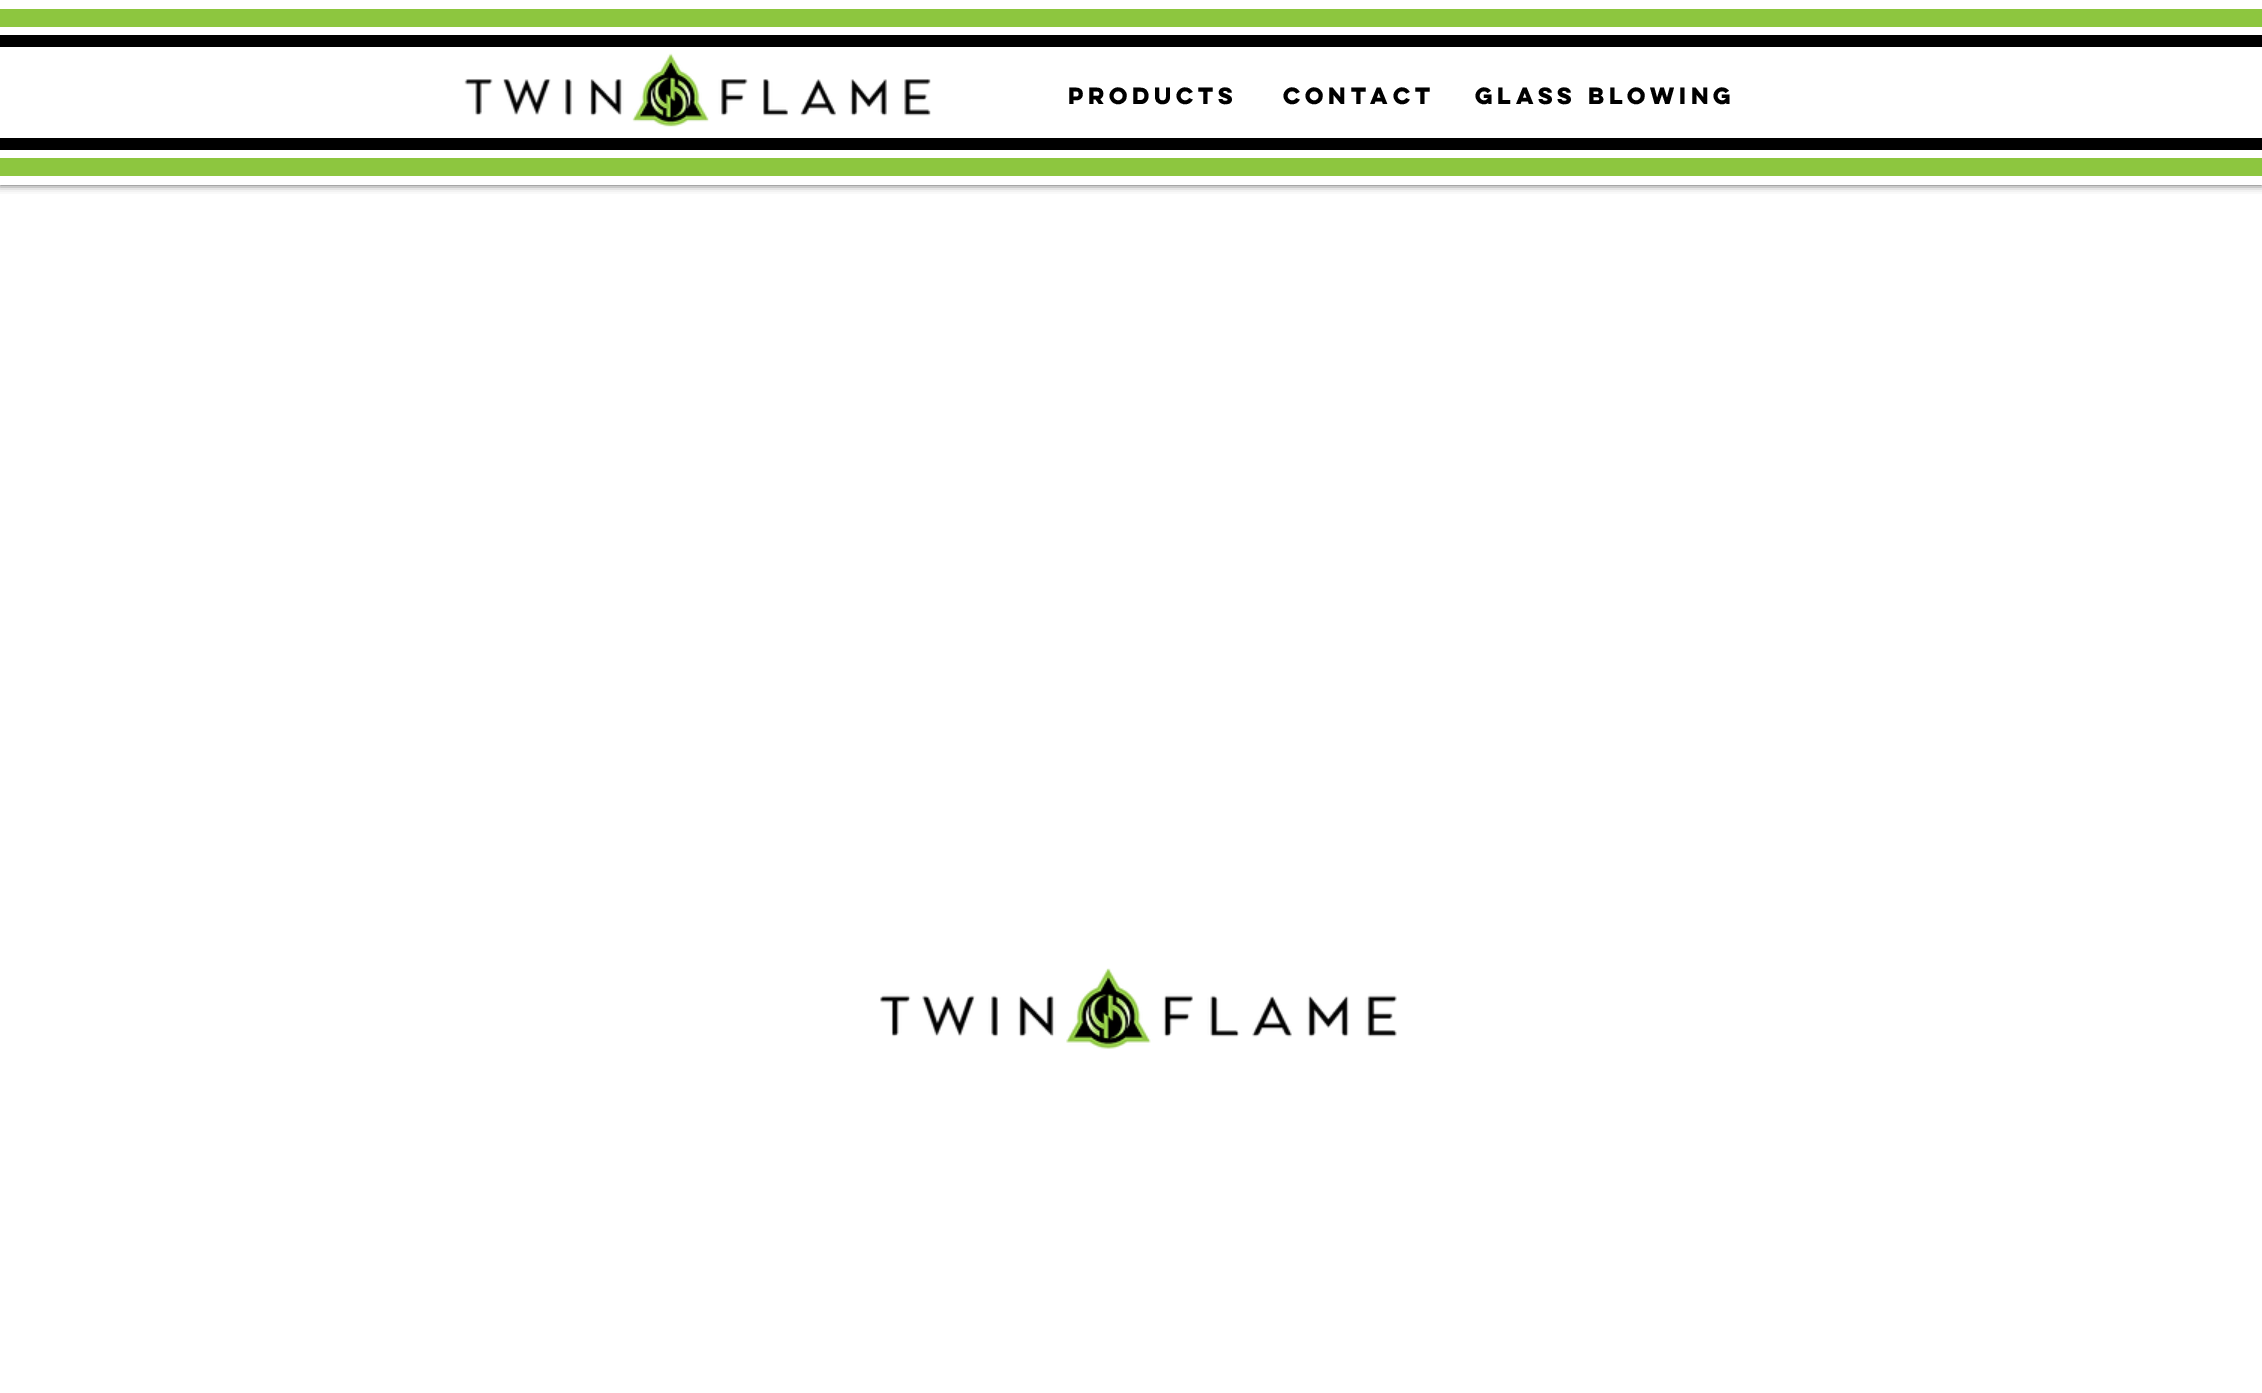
%!PS
<< /PageSize [2262 1393] /PageUsesTransparency true >> setpagedevice
/rgb { 3 { 255 div 3 1 roll } repeat setrgbcolor } def
/font { [ exch dup neg 0 0 3 -1 roll 0 0 ] selectfont } def
/text { moveto show } def
/alpha { dup .setfillconstantalpha .setstrokeconstantalpha } def
/roundrect { 5 dict begin { /r /h /w /y /x } { exch def } forall
  x r add y moveto x w add y 2 copy h add r arct x w add y h add x 1 index r arct
  x y h add x y r arct x y 2 copy exch w add exch r arct closepath end } def
/shadow { 12 dict begin { /a /b /q /h /w /y /x } { exch def } forall gsave /was 0 def
  9 -2 -9 { dup b mul 4 div /e exch def 1 sub .425 mul 2.718 exch exp 1 add a .99 .min exch div /now exch def
    1 1 now sub 1 was sub div sub alpha /was now def
    w h .min e 2 mul add 0 gt { x e sub y e sub w e 2 mul add h e 2 mul add
      q e add b .6 mul add w h .min 2 div e add .min 0 .max roundrect fill } if } for grestore end } def
/picture { 5 dict begin { /h /w /y /x /name } { exch def } forall
  gsave x y translate w h scale
  w h 8 [w 0 0 h 0 0] name (r) file false 3 colorimage grestore end } def
0 .pushpdf14devicefilter
0 1393 translate 1 -1 scale
4 setmiterlimit
255 255 255 rgb
0 0 2262 1393 rectfill
0 0 0 rgb
0 0 2262 185 0 4 0.7 shadow
255 255 255 rgb
0 0 2262 185 rectfill
141 198 63 rgb
0 9 2262 18 rectfill
0 158 2262 18 rectfill
0 0 0 rgb
0 35 2262 12 rectfill
0 138 2262 12 rectfill
(img_01.rgb) 464 53 467 74 picture
(img_02.rgb) 880 968 517 81 picture
/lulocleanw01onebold-Bold 21 font
(Products) 1068 104 text
(Contact) 1283 104 text
(Glass Blowing) 1475 104 text
.poppdf14devicefilter showpage
